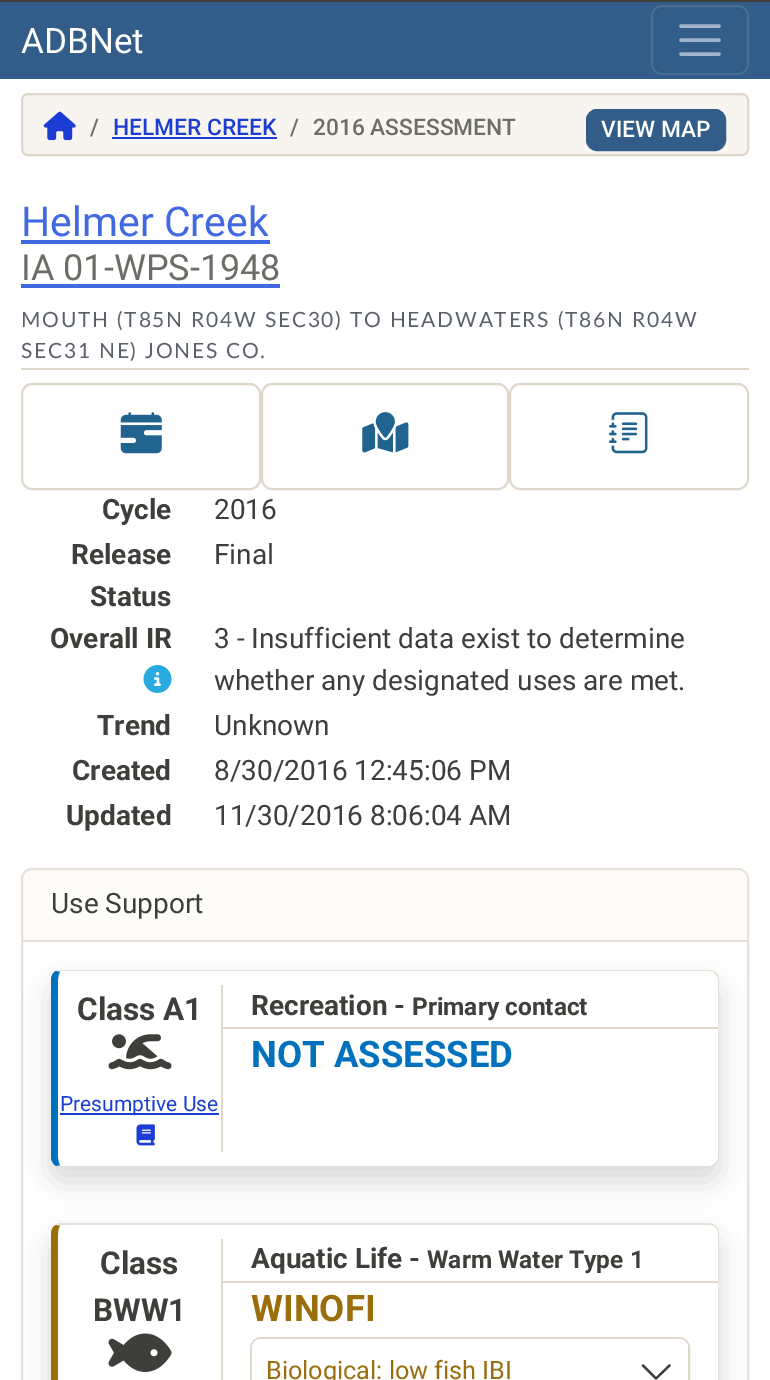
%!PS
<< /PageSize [770 1380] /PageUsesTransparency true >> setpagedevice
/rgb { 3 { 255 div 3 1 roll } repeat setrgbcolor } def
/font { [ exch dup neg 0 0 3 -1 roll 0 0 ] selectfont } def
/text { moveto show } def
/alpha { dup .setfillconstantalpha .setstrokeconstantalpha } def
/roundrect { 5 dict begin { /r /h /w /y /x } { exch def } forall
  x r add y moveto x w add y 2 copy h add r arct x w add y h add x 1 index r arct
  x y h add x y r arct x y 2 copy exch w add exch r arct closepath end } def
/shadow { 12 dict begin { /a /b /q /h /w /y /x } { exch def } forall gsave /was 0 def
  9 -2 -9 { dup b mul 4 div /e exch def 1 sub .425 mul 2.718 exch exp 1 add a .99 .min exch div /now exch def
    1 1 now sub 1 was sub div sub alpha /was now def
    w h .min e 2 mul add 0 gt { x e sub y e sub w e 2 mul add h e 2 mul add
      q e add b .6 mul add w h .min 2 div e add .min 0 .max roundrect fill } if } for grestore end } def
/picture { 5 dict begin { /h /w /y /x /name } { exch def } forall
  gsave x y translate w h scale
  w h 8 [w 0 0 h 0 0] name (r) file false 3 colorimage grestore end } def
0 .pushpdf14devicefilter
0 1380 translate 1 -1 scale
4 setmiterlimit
255 255 255 rgb
0 0 770 1380 rectfill
50 93 136 rgb
0 2 770 77 rectfill
62 63 58 rgb
0 0 770 2 rectfill
71 109 148 rgb
2 setlinewidth
652 6 96 68 10 roundrect stroke
163 182 201 rgb
3.5 setlinewidth
1 setlinecap
681 26 moveto 38 0 rlineto 681 40 moveto 38 0 rlineto 681 54 moveto 38 0 rlineto stroke
248 245 240 rgb
22 94 726 61 6 roundrect gsave fill grestore
223 215 202 rgb
2 setlinewidth
0 setlinecap
stroke
(img_01.rgb) 43 111 33 30 picture
27 61 211 rgb
112 137 165 2 rectfill
50 93 136 rgb
587 110 138 40 10 roundrect gsave fill grestore
stroke
223 215 202 rgb
21 368 728 2 rectfill
65 105 225 rgb
21 240 249 4 rectfill
21 284 259 4 rectfill
223 215 202 rgb
22 384 238 105 10 roundrect stroke
(img_02.rgb) 120 412 42 42 picture
262 384 246 105 10 roundrect stroke
(img_03.rgb) 362 412 47 41 picture
510 384 238 105 10 roundrect stroke
(img_04.rgb) 609 412 39 42 picture
(img_05.rgb) 143 665 29 28 picture
231 225 215 rgb
22 869 726 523 10 roundrect stroke
0.25 alpha
248 245 240 rgb
32 870 moveto 706 0 rlineto 5 0 9 4 9 9 rcurveto 0 63 rlineto -724 0 rlineto 0 -63 rlineto 0 -5 4 -9 9 -9 rcurveto closepath fill
1 alpha
231 224 214 rgb
23 940 724 2 rectfill
gsave
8 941 moveto 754 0 rlineto 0 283 rlineto -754 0 rlineto closepath 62 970 moveto 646 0 rlineto 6 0 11 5 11 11 rcurveto 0 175 rlineto 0 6 -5 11 -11 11 rcurveto -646 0 rlineto -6 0 -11 -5 -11 -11 rcurveto 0 -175 rlineto 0 -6 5 -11 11 -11 rcurveto closepath eoclip newpath
0 0 0 rgb
51 984 668 197 11 14 0.15 shadow
grestore
231 225 215 rgb
61 970 moveto -5 1 rlineto 4 1 rlineto 1 -1 rlineto 648 0 rlineto 2 0 5 1 6 3 rcurveto 1 -1 rlineto -2 -2 -4 -3 -7 -3 rcurveto closepath fill
0.75 alpha
223 215 202 rgb
716 973 moveto 2 1 3 4 3 7 rcurveto 0 177 rlineto 0 3 -1 5 -3 7 rcurveto -1 -1 rlineto 2 -1 3 -3 3 -6 rcurveto 0 -177 rlineto 0 -3 -1 -5 -3 -6 rcurveto closepath fill
716 1164 moveto -2 2 -4 3 -7 3 rcurveto -648 0 rlineto -2 0 -4 0 -5 -1 rcurveto 4 -1 rlineto 1 1 rlineto 648 0 rlineto 3 0 5 -1 6 -3 rcurveto closepath fill
1 alpha
0 113 188 rgb
56 971 moveto -3 1 -5 5 -5 9 rcurveto 0 177 rlineto 0 4 2 7 5 9 rcurveto 4 -1 rlineto -1 -1 -2 -4 -2 -8 rcurveto 0 -177 rlineto 0 -4 1 -7 2 -8 rcurveto closepath fill
223 215 202 rgb
221 985 2 167 rectfill
(img_06.rgb) 108 1034 64 36 picture
27 61 211 rgb
60 1113 159 2 rectfill
(img_07.rgb) 136 1124 19 22 picture
223 215 202 rgb
222 1027 496 2 rectfill
0 0 0 rgb
51 1237 668 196 11 14 0.15 shadow
255 255 255 rgb
51 1223 668 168 11 roundrect fill
231 225 215 rgb
61 1225 moveto -1 1 rlineto -4 -1 rlineto 3 -2 rlineto 652 0 rlineto 2 1 4 2 5 3 rcurveto -1 1 rlineto -1 -1 -4 -2 -6 -2 rcurveto closepath fill
0.75 alpha
223 215 202 rgb
716 1226 moveto 2 2 3 5 3 8 rcurveto 0 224 rlineto 0 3 -1 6 -3 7 rcurveto -1 -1 rlineto 2 -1 3 -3 3 -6 rcurveto 0 -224 rlineto 0 -3 -1 -5 -3 -7 rcurveto closepath fill
1 alpha
155 110 13 rgb
56 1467 moveto -3 -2 -5 -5 -5 -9 rcurveto 0 -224 rlineto 0 -4 2 -8 5 -9 rcurveto 4 1 rlineto -1 1 -2 4 -2 8 rcurveto 0 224 rlineto 0 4 1 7 2 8 rcurveto closepath fill
223 215 202 rgb
221 1239 2 141 rectfill
(img_08.rgb) 108 1333 64 39 picture
222 1281 496 2 rectfill
251 1338 438 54 10 roundrect stroke
255 255 255 rgb
252 1339 436 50 9 roundrect fill
62 63 58 rgb
2.2 setlinewidth
1 setlinecap
1 setlinejoin
643 1365.5 moveto 13 13 rlineto 13.5 -13 rlineto stroke
/Roboto-Regular 35 font
255 255 255 rgb
(ADBNet) 21 53 text
/Roboto-Medium 22.75 font
109 109 104 rgb
(/) 90 135 text
27 61 211 rgb
(HELMER CREEK) 113 135 text
109 109 104 rgb
(/) 290 135 text
(2016 ASSESSMENT) 313 135 text
255 255 255 rgb
(VIEW MAP) 601 137 text
/Roboto-Regular 41 font
65 105 225 rgb
(Helmer Creek) 21 236 text
/Roboto-Regular 36 font
109 109 104 rgb
(IA 01-WPS-1948) 21 280 text
/Lato-Regular 21 font
91 97 107 rgb
21 327 moveto 1.75 0 (MOUTH \(T85N R04W SEC30\) TO HEADWATERS \(T86N R04W) ashow
21 358 moveto 1.75 0 (SEC31 NE\) JONES CO.) ashow
/Roboto-Bold 28 font
62 63 58 rgb
(Cycle) 102 519 text
/Roboto-Regular 28 font
(2016) 214 519 text
/Roboto-Bold 28 font
(Release) 71 564 text
(Status) 90 606 text
/Roboto-Regular 28 font
(Final) 214 564 text
/Roboto-Bold 28 font
(Overall IR) 50 648 text
/Roboto-Regular 28 font
(3 - Insufficient data exist to determine) 214 648 text
(whether any designated uses are met.) 214 690 text
/Roboto-Bold 28 font
(Trend) 97 735 text
/Roboto-Regular 28 font
(Unknown) 214 735 text
/Roboto-Bold 28 font
(Created) 72 780 text
/Roboto-Regular 28 font
(8/30/2016 12:45:06 PM) 214 780 text
/Roboto-Bold 28 font
(Updated) 66 825 text
/Roboto-Regular 28 font
(11/30/2016 8:06:04 AM) 214 825 text
(Use Support) 51 913 text
/Roboto-Bold 31.5 font
(Class A1) 77 1020 text
/Roboto-Regular 21 font
27 61 211 rgb
(Presumptive Use) 60 1111 text
/Roboto-Bold 28 font
62 63 58 rgb
(Recreation -) 251 1015 text
/Roboto-Bold 24.5 font
(Primary contact) 412 1015 text
/Roboto-Bold 36.5 font
0 113 188 rgb
(NOT ASSESSED) 251 1067 text
/Roboto-Bold 31.5 font
62 63 58 rgb
(Class) 100 1274 text
(BWW1) 93 1321 text
/Roboto-Bold 28 font
(Aquatic Life -) 251 1268 text
/Roboto-Bold 24.5 font
(Warm Water Type 1) 427 1268 text
/Roboto-Bold 36.5 font
155 110 13 rgb
(WINOFI) 251 1321 text
/Roboto-Regular 25.25 font
(Biological: low fish IBI) 266 1379 text
.poppdf14devicefilter showpage
